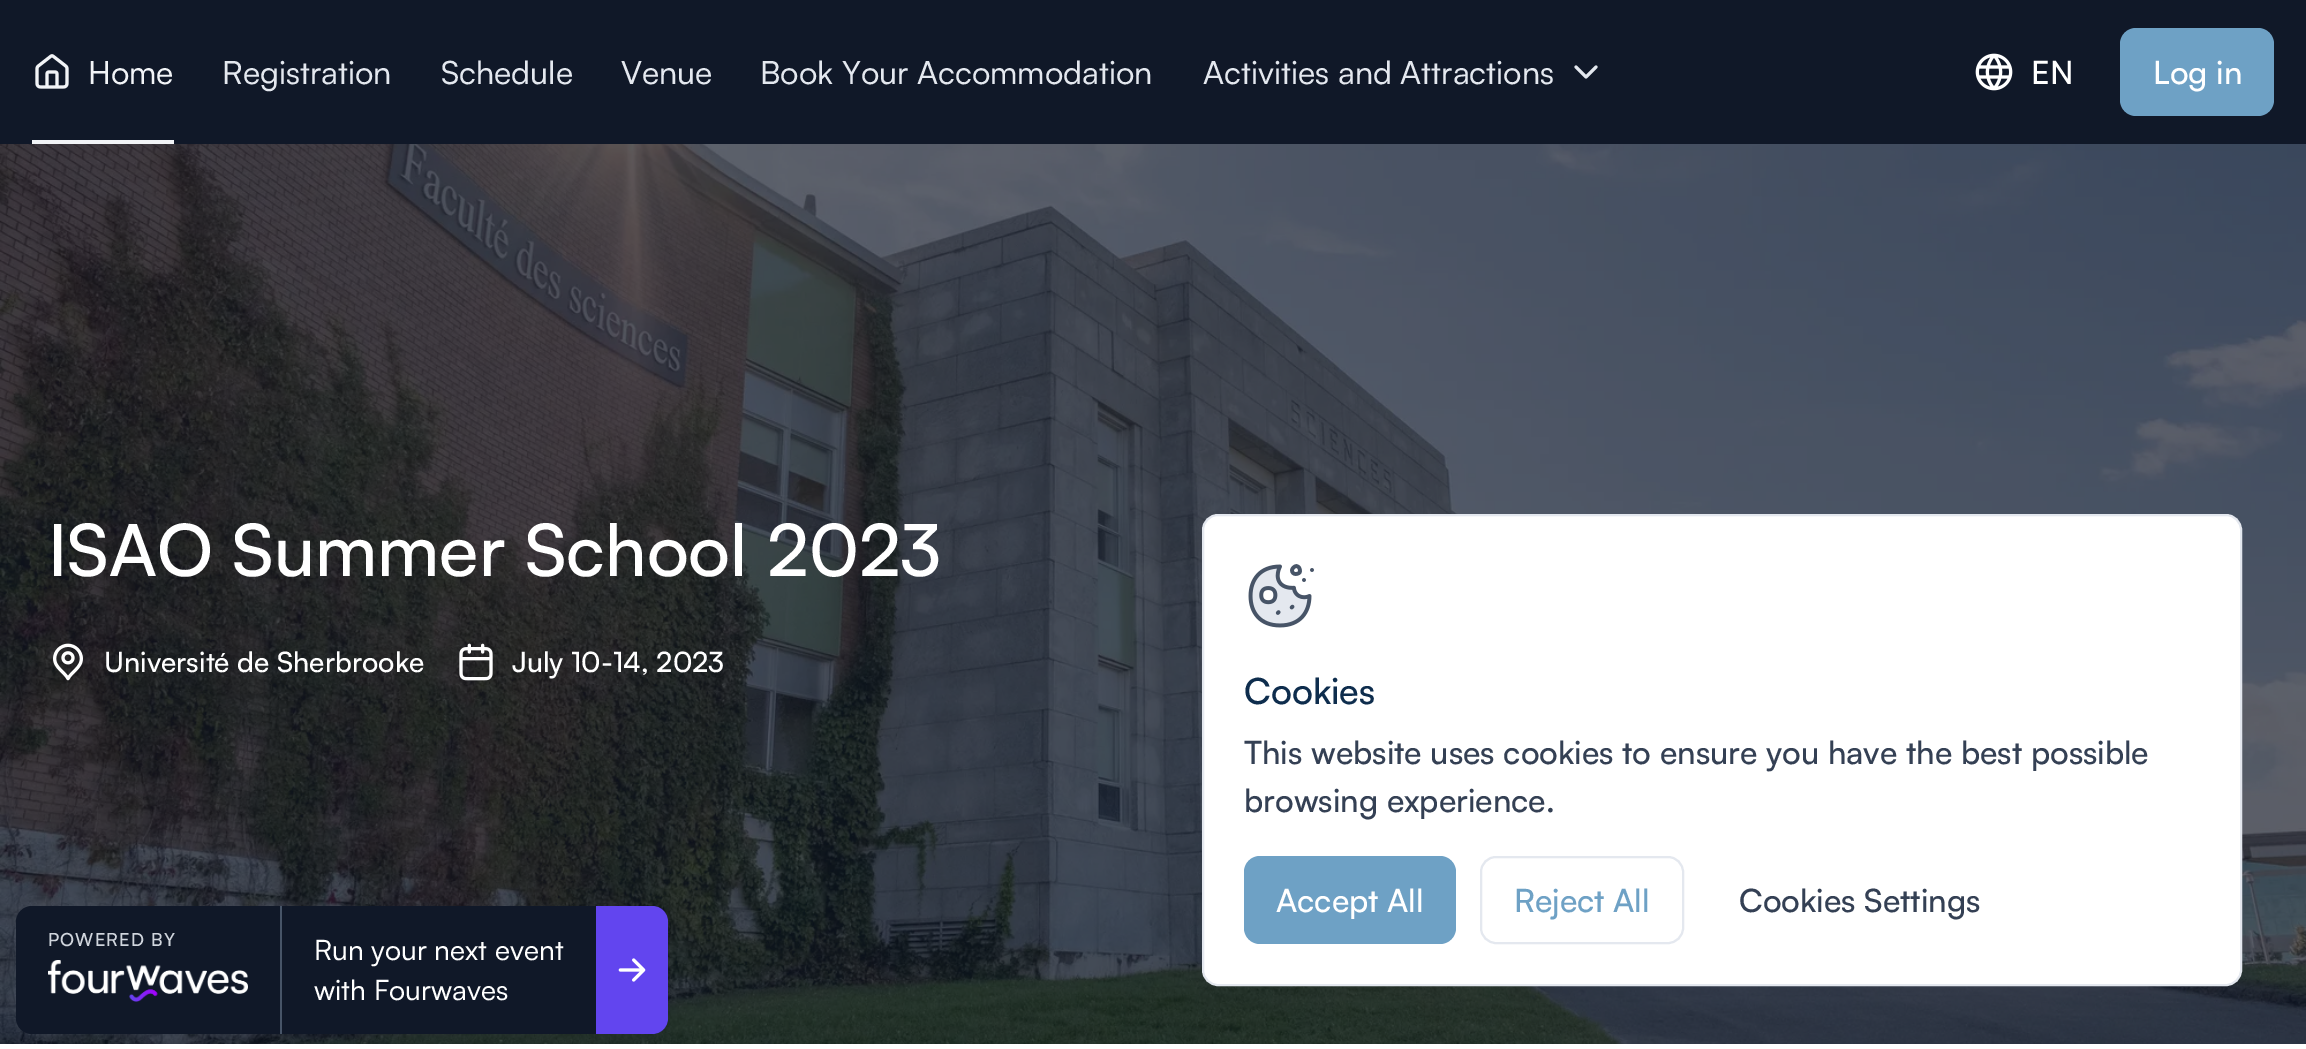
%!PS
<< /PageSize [2306 1049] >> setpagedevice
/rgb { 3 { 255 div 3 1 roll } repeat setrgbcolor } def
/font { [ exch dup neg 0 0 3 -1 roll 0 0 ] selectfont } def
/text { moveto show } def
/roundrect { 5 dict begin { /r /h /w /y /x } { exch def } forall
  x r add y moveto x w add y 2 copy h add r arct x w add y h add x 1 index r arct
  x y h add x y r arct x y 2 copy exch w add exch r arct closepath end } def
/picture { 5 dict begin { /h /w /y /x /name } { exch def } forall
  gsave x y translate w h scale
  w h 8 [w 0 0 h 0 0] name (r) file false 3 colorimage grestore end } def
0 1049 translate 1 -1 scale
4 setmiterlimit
255 255 255 rgb
0 0 2306 1049 rectfill
16 24 40 rgb
0 0 2306 144 rectfill
(img_01.rgb) 35 54 34 35 picture
242 244 247 rgb
32 140 142 4 rectfill
(img_02.rgb) 1574 65 24 14 picture
(img_03.rgb) 1975 53 38 38 picture
110 161 197 rgb
2120 28 154 88 16 roundrect fill
(img_04.rgb) 0 144 2306 900 picture
(img_05.rgb) 53 643 30 38 picture
(img_06.rgb) 459 643 34 38 picture
16 24 40 rgb
16 906 652 128 16 roundrect fill
71 84 103 rgb
280 906 2 128 rectfill
(img_07.rgb) 48 960 200 42 picture
98 69 239 rgb
596 906 moveto 56 0 rlineto 9 0 16 7 16 16 rcurveto 0 96 rlineto 0 9 -7 16 -16 16 rcurveto -56 0 rlineto closepath fill
(img_08.rgb) 618 958 28 24 picture
255 255 255 rgb
1203 515 1038 470 15 roundrect gsave fill grestore
228 232 239 rgb
2 setlinewidth
stroke
(img_09.rgb) 1248 564 66 64 picture
110 161 197 rgb
1244 856 212 88 16 roundrect fill
228 232 239 rgb
1481 857 202 86 15 roundrect stroke
/Satoshi-Regular 32 font
242 244 247 rgb
(Home) 88 84 text
228 232 239 rgb
(Registration) 222 84 text
(Schedule) 441 84 text
(Venue) 621 84 text
(Book Your Accommodation) 760 84 text
(Activities and Attractions) 1203 84 text
/Satoshi-Medium 32 font
255 255 255 rgb
(EN) 2031 84 text
(Log in) 2153 84 text
/Satoshi-Medium 72 font
(ISAO Summer School 2023) 48 576 text
/Satoshi-Medium 28 font
(Université de Sherbrooke) 104 672 text
(July 10-14, 2023) 512 672 text
/Satoshi-Medium 18 font
208 213 221 rgb
48 946 moveto 1.1 0 (POWERED BY) ashow
/Satoshi-Regular 28 font
255 255 255 rgb
(Run your next event) 314 960 text
(with Fourwaves) 314 1000 text
/Satoshi-Medium 36 font
14 45 77 rgb
(Cookies) 1244 704 text
/Satoshi-Medium 32 font
52 64 84 rgb
(This website uses cookies to ensure you have the best possible) 1244 764 text
(browsing experience.) 1244 812 text
255 255 255 rgb
(Accept All) 1276 912 text
110 161 197 rgb
(Reject All) 1514 912 text
52 64 84 rgb
(Cookies Settings) 1739 912 text
showpage
